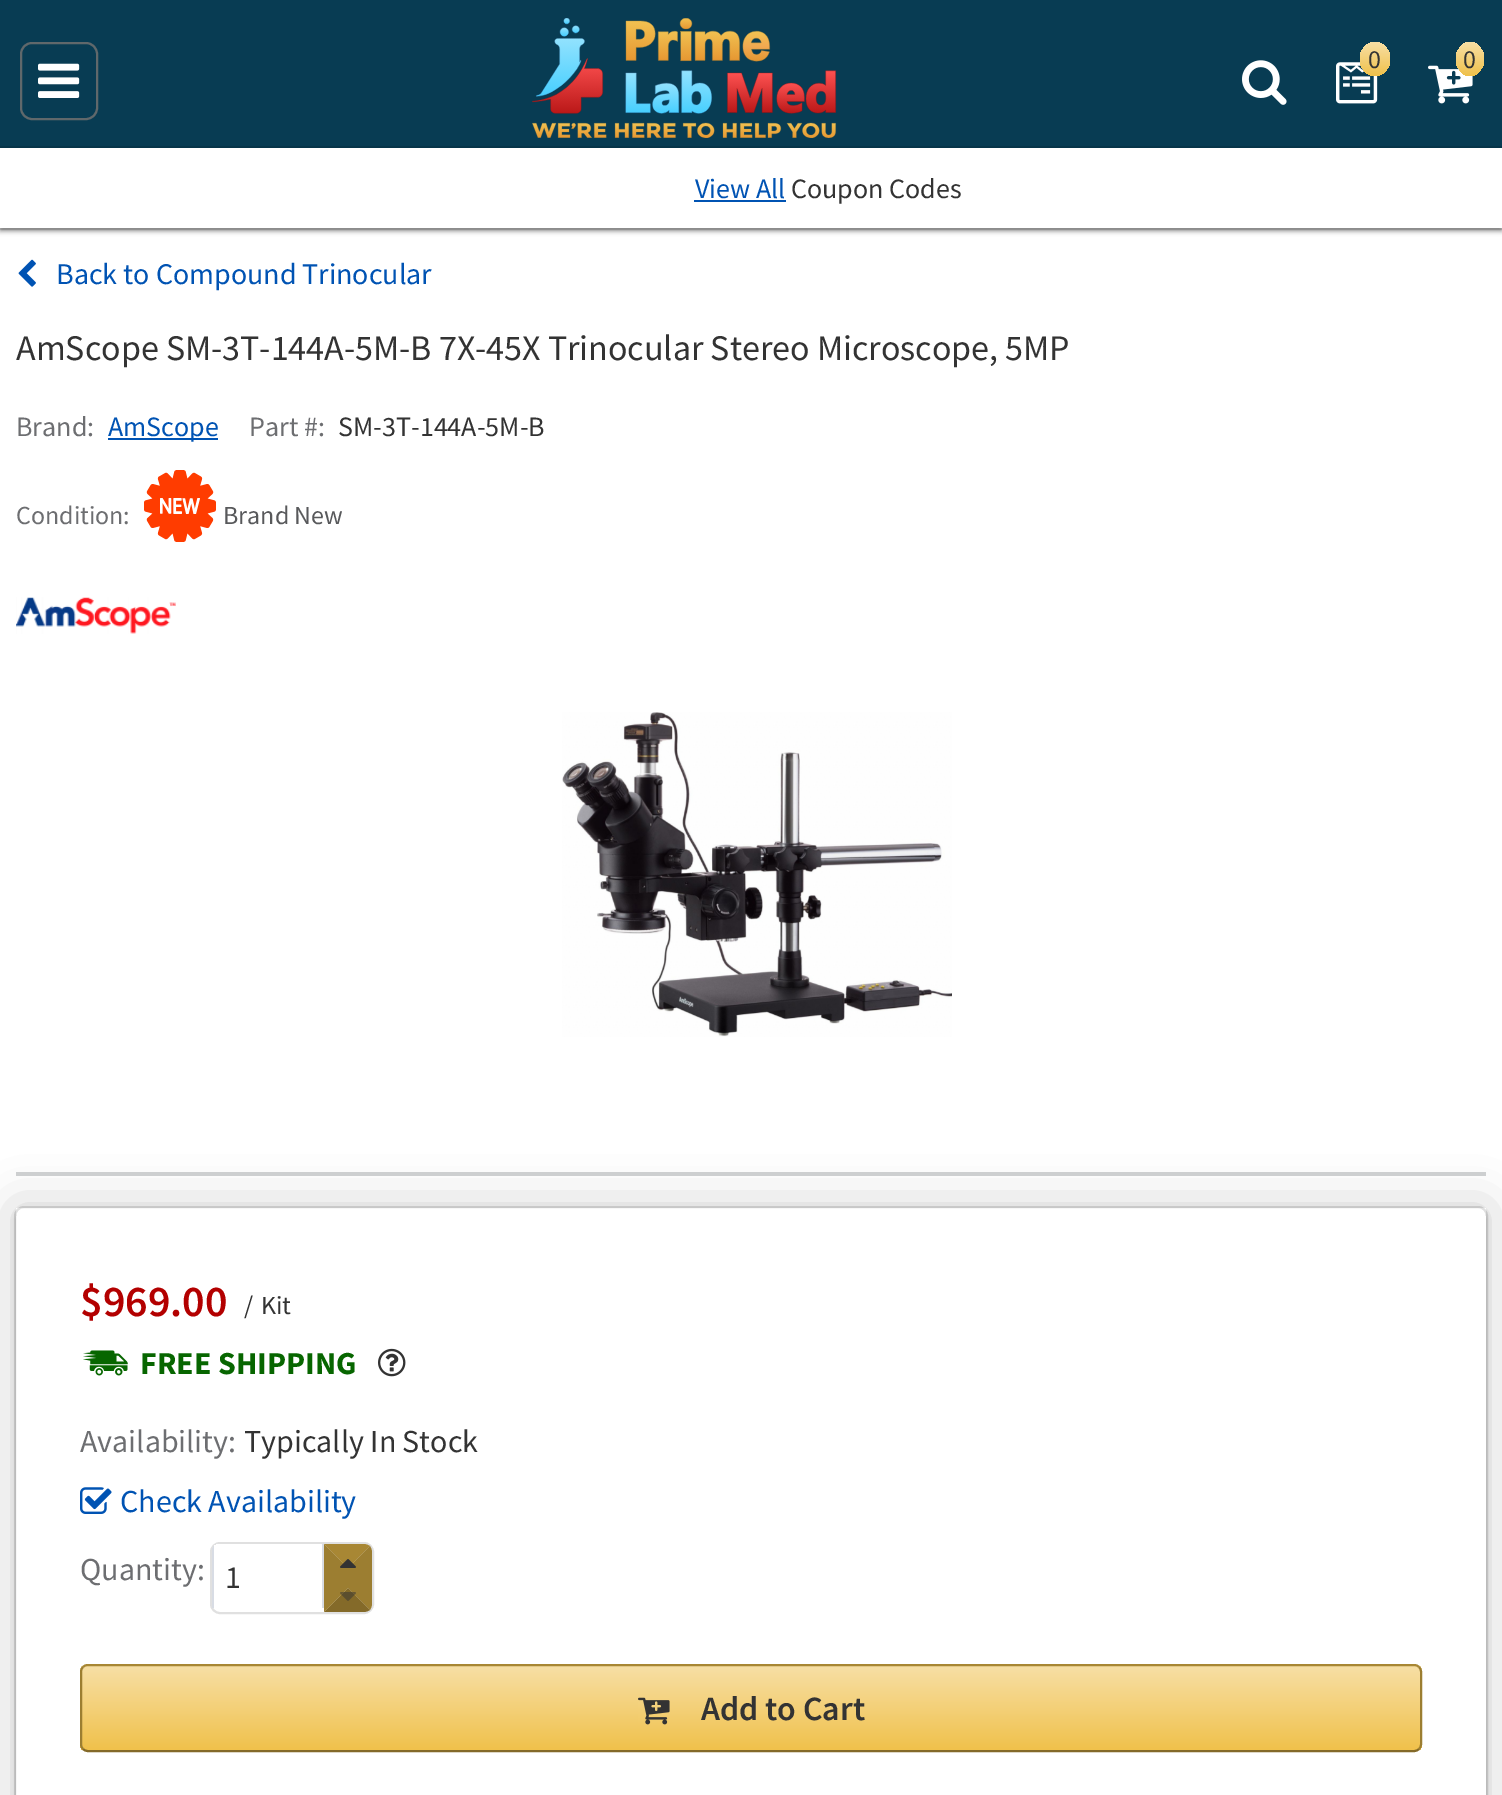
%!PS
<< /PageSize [1502 1795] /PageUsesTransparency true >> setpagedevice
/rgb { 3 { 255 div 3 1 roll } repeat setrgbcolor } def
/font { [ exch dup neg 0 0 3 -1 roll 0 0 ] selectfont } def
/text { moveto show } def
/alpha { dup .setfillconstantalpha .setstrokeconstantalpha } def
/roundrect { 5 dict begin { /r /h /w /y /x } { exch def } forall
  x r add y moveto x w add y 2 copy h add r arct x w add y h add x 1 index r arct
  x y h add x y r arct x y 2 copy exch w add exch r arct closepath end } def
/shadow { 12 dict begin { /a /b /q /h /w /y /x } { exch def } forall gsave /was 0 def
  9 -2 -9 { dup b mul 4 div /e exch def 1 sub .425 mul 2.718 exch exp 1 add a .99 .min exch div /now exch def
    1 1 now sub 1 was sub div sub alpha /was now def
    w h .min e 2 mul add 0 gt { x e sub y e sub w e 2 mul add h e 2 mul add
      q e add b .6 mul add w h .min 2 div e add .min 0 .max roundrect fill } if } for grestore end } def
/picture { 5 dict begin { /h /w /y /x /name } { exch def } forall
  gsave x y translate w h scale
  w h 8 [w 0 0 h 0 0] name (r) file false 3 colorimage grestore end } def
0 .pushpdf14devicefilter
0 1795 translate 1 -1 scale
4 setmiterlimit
255 255 255 rgb
0 0 1502 1795 rectfill
224 224 224 rgb
2 setlinewidth
-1 -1 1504 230 rectstroke
0 0 0 rgb
0 4 1502 228 0 2 0.16 shadow
8 60 83 rgb
0 0 1502 148 rectfill
96 104 107 rgb
21 43 76 76 11 roundrect stroke
(img_01.rgb) 38 63 42 35 picture
(img_02.rgb) 532 18 305 120 picture
(img_03.rgb) 1242 60 45 45 picture
(img_04.rgb) 1336 62 42 42 picture
gsave 1375 42 moveto 8.5 0 15 7.5 15 17 rcurveto 0 9.5 -6.5 17 -15 17 rcurveto -8.5 0 -15 -7.5 -15 -17 rcurveto 0 -9.5 6.5 -17 15 -17 rcurveto closepath clip newpath
<< /ShadingType 2 /ColorSpace /DeviceRGB /Coords [1375 42 1375 76] /Extend [true true] /Function << /FunctionType 2 /Domain [0 1] /C0 [0.969 0.875 0.647] /C1 [0.941 0.757 0.294] /N 1 >> >> shfill grestore
(img_05.rgb) 1428 65 45 39 picture
gsave 1470 42 moveto 7.5 0 14 7.5 14 17 rcurveto 0 9.5 -6.5 17 -14 17 rcurveto -7.5 0 -14 -7.5 -14 -17 rcurveto 0 -9.5 6.5 -17 14 -17 rcurveto closepath clip newpath
<< /ShadingType 2 /ColorSpace /DeviceRGB /Coords [1470 42 1470 76] /Extend [true true] /Function << /FunctionType 2 /Domain [0 1] /C0 [0.969 0.875 0.647] /C1 [0.941 0.757 0.294] /N 1 >> >> shfill grestore
0.12 alpha
0 0 0 rgb
-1 147 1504 82 rectstroke
1 alpha
0 152 1502 80 0 2 0.16 shadow
255 255 255 rgb
0 148 1502 80 rectfill
0 83 179 rgb
694 200 92 2 rectfill
(img_06.rgb) 18 259 18 28 picture
108 438 110 2 rectfill
(img_07.rgb) 144 470 72 72 picture
(img_08.rgb) 16 597 160 37 picture
(img_09.rgb) 562 712 390 325 picture
209 211 212 rgb
16 1172 1470 4 rectfill
gsave
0 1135 moveto 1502 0 rlineto 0 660 rlineto -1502 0 rlineto closepath 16 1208 moveto 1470 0 rlineto 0 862 rlineto -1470 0 rlineto closepath eoclip newpath
0 0 0 rgb
16 1208 1470 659 0 24 0.2 shadow
grestore
0.12 alpha
0 0 0 rgb
15 1207 1472 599 9 roundrect stroke
gsave
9 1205 moveto 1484 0 rlineto 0 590 rlineto -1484 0 rlineto closepath 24 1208 moveto 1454 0 rlineto 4.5 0 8 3.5 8 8 rcurveto 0 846 rlineto 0 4.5 -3.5 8 -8 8 rcurveto -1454 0 rlineto -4.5 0 -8 -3.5 -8 -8 rcurveto 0 -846 rlineto 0 -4.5 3.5 -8 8 -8 rcurveto closepath eoclip newpath
1 alpha
16 1212 1470 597 8 2 0.16 shadow
grestore
1 alpha
(img_10.rgb) 83 1350 45 26 picture
(img_11.rgb) 378 1348 28 29 picture
(img_12.rgb) 80 1487 32 27 picture
224 224 224 rgb
211 1543 162 70 9 roundrect stroke
gsave
212 1544 160 68 8 roundrect clip newpath
255 255 255 rgb
214 1544 108 64 rectfill
grestore
216 220 228 rgb
322 1544 2 64 rectfill
gsave
212 1544 160 68 8 roundrect clip newpath
212 1544 2 64 rectfill
grestore
168 135 52 rgb
324 1544 moveto 40 0 rlineto 2 0 4 1 6 2 rcurveto -22 22 rlineto closepath fill
156 126 49 rgb
370 1546 moveto -22 22 rlineto 0 20 rlineto 22 22 rlineto 1 -2 2 -4 2 -6 rcurveto 0 -52 rlineto 0 -2 -1 -4 -2 -6 rcurveto closepath fill
132 106 41 rgb
370 1610 moveto -22 -22 rlineto -24 24 rlineto 40 0 rlineto 2 0 4 -1 6 -2 rcurveto closepath fill
156 126 49 rgb
324 1544 moveto 24 24 rlineto 0 20 rlineto -24 24 rlineto closepath fill
(img_13.rgb) 340 1559 16 9 picture
(img_14.rgb) 340 1592 16 9 picture
gsave
80 1664 1342 88 8 roundrect clip newpath
gsave 80 1666 moveto 1342 0 rlineto 0 84 rlineto -1342 0 rlineto closepath clip newpath
<< /ShadingType 2 /ColorSpace /DeviceRGB /Coords [751 1666 751 1750] /Extend [true true] /Function << /FunctionType 2 /Domain [0 1] /C0 [0.969 0.875 0.647] /C1 [0.941 0.757 0.294] /N 1 >> >> shfill grestore
grestore
168 135 52 rgb
83 1667 moveto 1.5 -1.5 3 -2 5 -2 rcurveto 1326 0 rlineto 2 0 3.5 0.5 5 2 rcurveto stroke
156 126 49 rgb
1419 1667 moveto 1.5 1.5 2 3 2 5 rcurveto 0 72 rlineto 0 2 -0.5 3.5 -2 5 rcurveto stroke
132 106 41 rgb
1419 1749 moveto -1.5 1.5 -3 2 -5 2 rcurveto -1326 0 rlineto -2 0 -3.5 -0.5 -5 -2 rcurveto stroke
156 126 49 rgb
83 1749 moveto -1.5 -1.5 -2 -3 -2 -5 rcurveto 0 -72 rlineto 0 -2 0.5 -3.5 2 -5 rcurveto stroke
(img_15.rgb) 638 1697 32 28 picture
/SourceSansPro-Regular 26 font
51 51 51 rgb
(0) 1368 68 text
(0) 1463 68 text
/SourceSansPro-Regular 28 font
0 83 179 rgb
(View All) 695 198 text
51 51 51 rgb
(Coupon Codes) 791 198 text
/SourceSansPro-Regular 30 font
0 83 179 rgb
(Back to Compound Trinocular) 56 284 text
/SourceSansPro-Regular 36 font
51 51 51 rgb
(AmScope SM-3T-144A-5M-B 7X-45X Trinocular Stereo Microscope, 5MP) 16 360 text
/SourceSansPro-Regular 28 font
109 110 113 rgb
(Brand:) 16 436 text
0 83 179 rgb
(AmScope) 108 436 text
109 110 113 rgb
(Part #:) 249 436 text
51 51 51 rgb
(SM-3T-144A-5M-B) 338 436 text
/SourceSansPro-Regular 26 font
109 110 113 rgb
(Condition:) 16 524 text
88 89 91 rgb
(Brand New) 223 524 text
/SourceSansPro-SemiBold 44 font
179 0 0 rgb
($969.00) 80 1316 text
/SourceSansPro-Regular 26 font
51 51 51 rgb
(/) 244 1314 text
(Kit) 261 1314 text
/SourceSansPro-Bold 32 font
7 102 0 rgb
(FREE SHIPPING) 140 1374 text
/SourceSansPro-Regular 32 font
109 110 113 rgb
(Availability:) 80 1452 text
51 51 51 rgb
(Typically In Stock) 244 1452 text
0 83 179 rgb
(Check Availability) 120 1512 text
109 110 113 rgb
(Quantity:) 80 1580 text
51 51 51 rgb
(1) 225 1588 text
/SourceSansPro-SemiBold 34 font
(Add to Cart) 701 1720 text
.poppdf14devicefilter showpage
